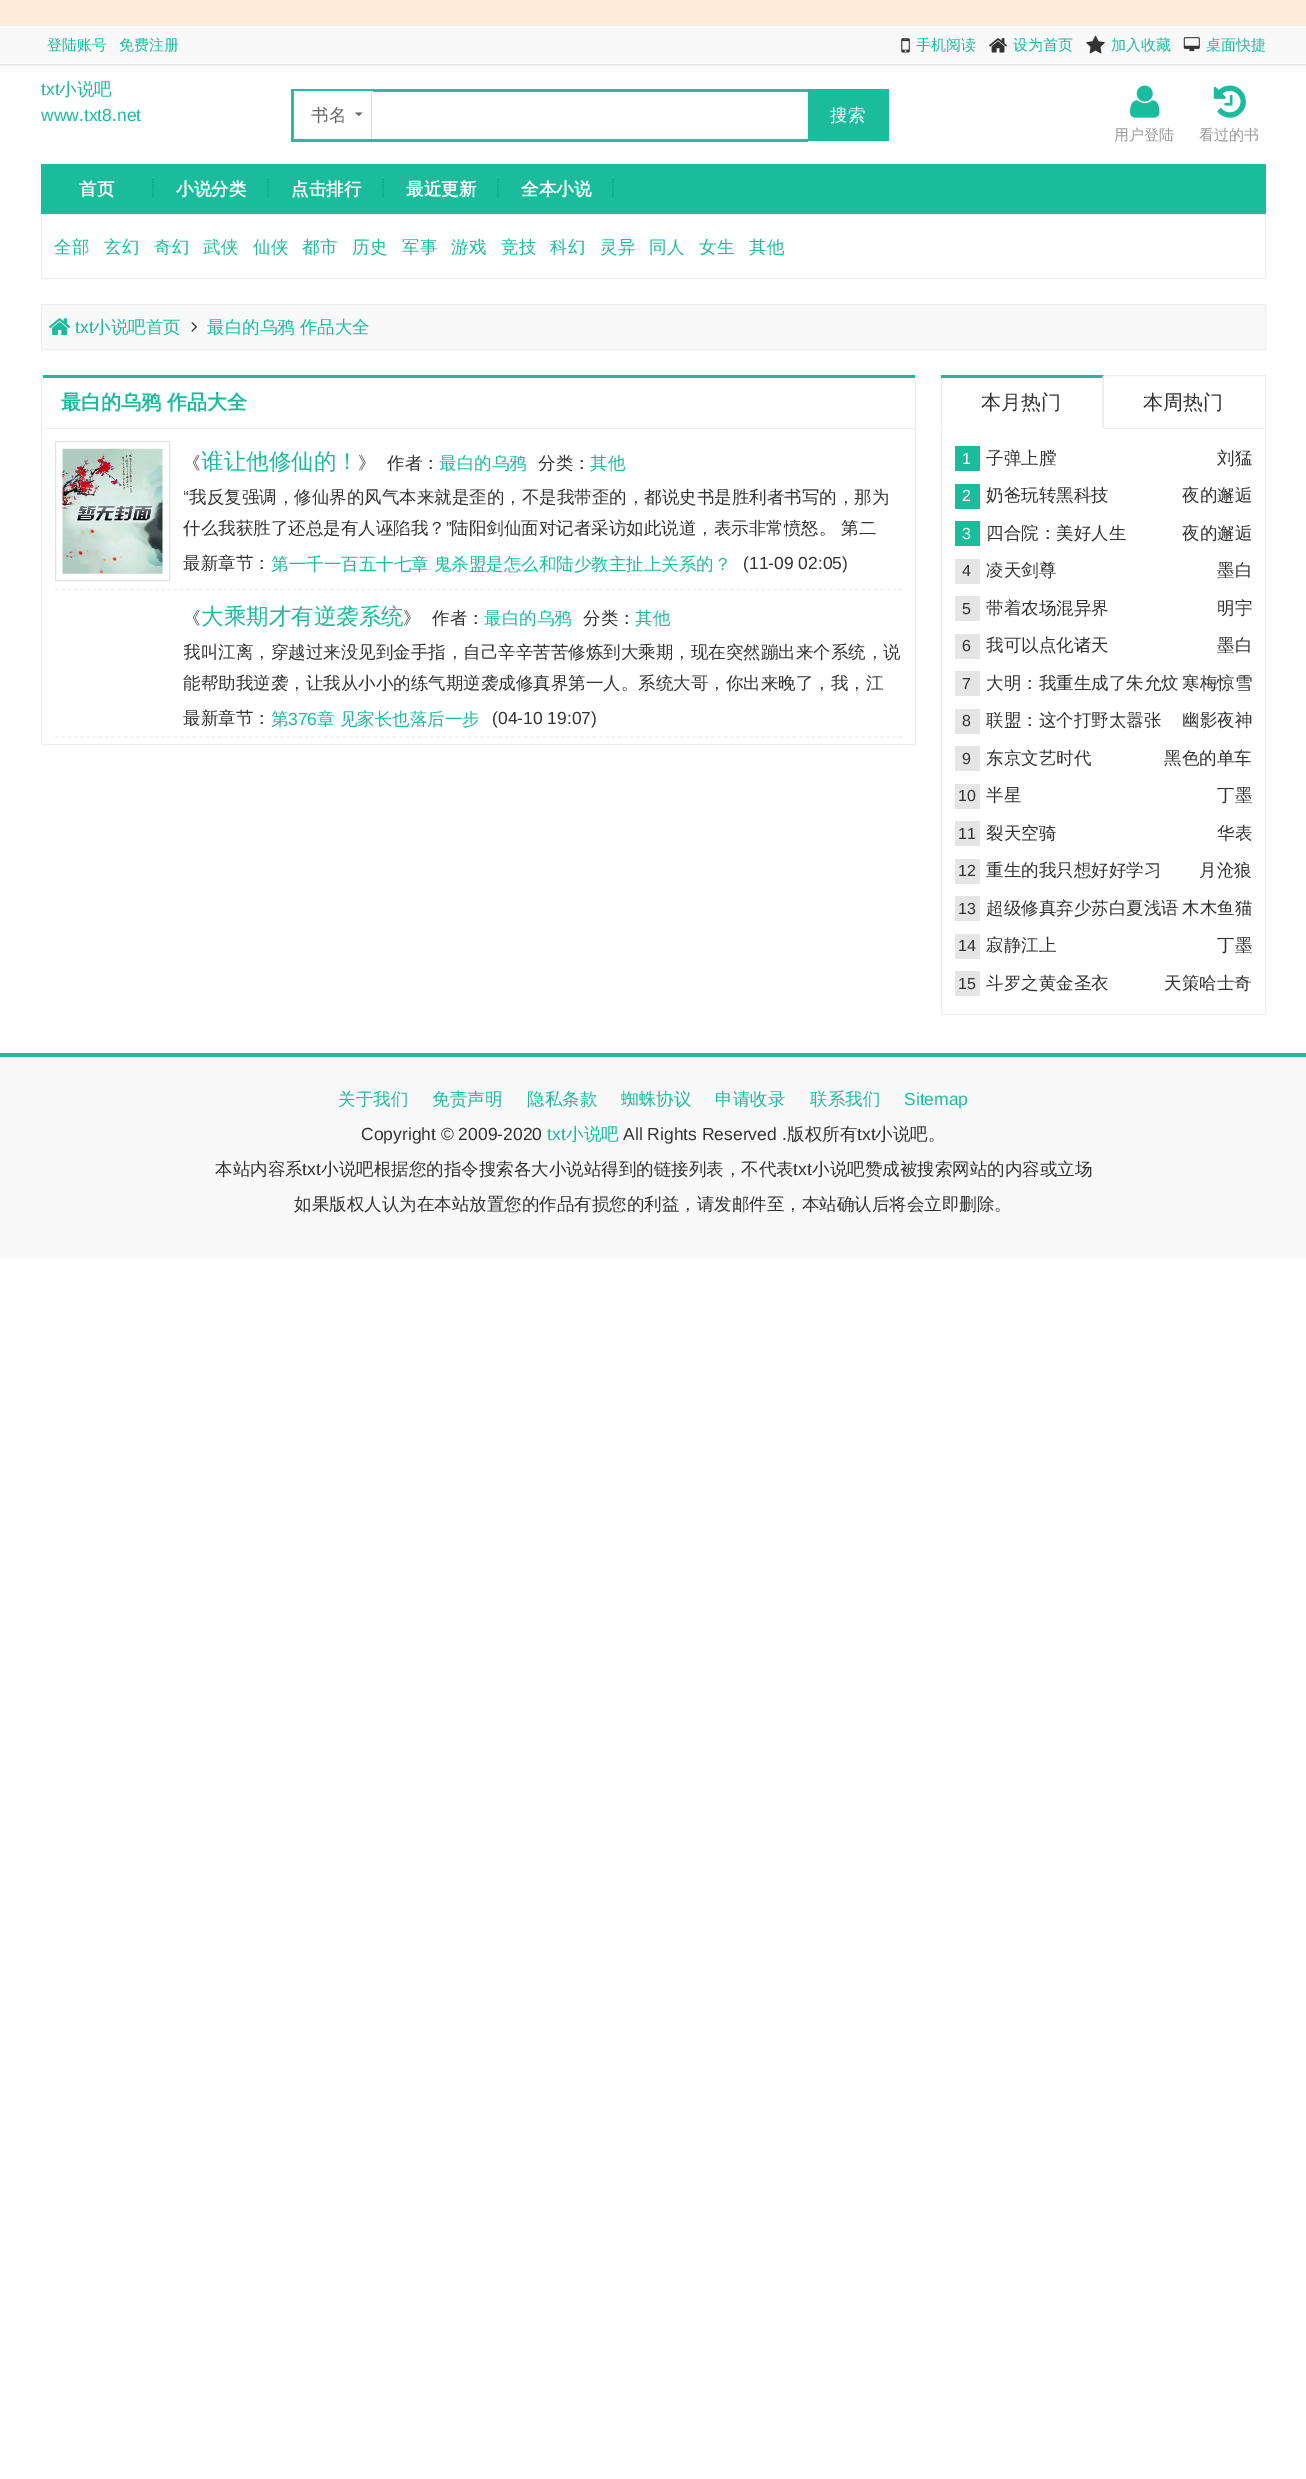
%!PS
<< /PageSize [1306 2479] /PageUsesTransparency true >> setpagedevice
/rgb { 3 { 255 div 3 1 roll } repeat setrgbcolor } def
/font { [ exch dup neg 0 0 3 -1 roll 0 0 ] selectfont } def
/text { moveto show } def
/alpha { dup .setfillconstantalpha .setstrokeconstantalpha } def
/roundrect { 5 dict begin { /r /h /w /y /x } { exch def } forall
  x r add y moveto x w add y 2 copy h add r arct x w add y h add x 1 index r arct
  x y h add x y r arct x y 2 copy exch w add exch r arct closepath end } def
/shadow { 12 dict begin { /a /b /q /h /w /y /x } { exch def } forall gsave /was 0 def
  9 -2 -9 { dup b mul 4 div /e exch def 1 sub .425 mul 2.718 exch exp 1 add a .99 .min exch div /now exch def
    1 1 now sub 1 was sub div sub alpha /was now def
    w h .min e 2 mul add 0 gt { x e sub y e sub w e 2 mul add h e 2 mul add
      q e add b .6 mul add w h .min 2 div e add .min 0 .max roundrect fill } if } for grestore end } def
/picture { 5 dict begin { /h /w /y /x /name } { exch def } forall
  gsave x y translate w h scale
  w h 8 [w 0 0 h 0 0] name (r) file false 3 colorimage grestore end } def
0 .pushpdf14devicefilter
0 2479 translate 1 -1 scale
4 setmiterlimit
255 255 255 rgb
0 0 1306 2479 rectfill
238 238 238 rgb
-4 21 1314 45 0 3 1 shadow
221 221 221 rgb
3 setlinewidth
-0.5 24.5 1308 39 rectstroke
255 255 255 rgb
1 setlinewidth
-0.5 24.5 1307 39 rectstroke
255 235 215 rgb
0 0 1306 25 rectfill
249 249 249 rgb
0 26 1306 37 rectfill
238 238 238 rgb
0 25 1306 1 rectfill
(img_01.rgb) 901 38 9 15 picture
(img_02.rgb) 989 38 18 15 picture
(img_03.rgb) 1086 35 19 19 picture
(img_04.rgb) 1183 37 17 15 picture
45 184 173 rgb
373 89 435 3 rectfill
291 139 517 3 rectfill
291 89 82 2 rectfill
291 89 3 52 rectfill
221 221 221 rgb
371 91 1 48 rectfill
102 102 102 rgb
355 112.5 moveto 7.5 0 rlineto -3.5 3.5 rlineto closepath fill
26 188 156 rgb
808 89 81 52 rectfill
(img_05.rgb) 1130 85 30 33 picture
(img_06.rgb) 1213 85 33 33 picture
41 164 1225 50 rectfill
0 162 132 rgb
1.2 setlinewidth
[1.25 1.25] 0 setdash
153 179 moveto 0 20 rlineto stroke
268 179 moveto 0 20 rlineto stroke
383 179 moveto 0 20 rlineto stroke
498 179 moveto 0 20 rlineto stroke
613 179 moveto 0 20 rlineto stroke
238 238 238 rgb
1 setlinewidth
[] 0 setdash
41.5 214.5 1224 64 rectstroke
249 249 249 rgb
41.5 304.5 moveto 1224 0 rlineto 0 45 rlineto -1224 0 rlineto closepath gsave fill grestore
238 238 238 rgb
stroke
(img_07.rgb) 49 318 22 17 picture
(img_08.rgb) 191 322 6 10 picture
41.5 375.5 874 369 rectstroke
26 188 156 rgb
43 375 872 3 rectfill
238 238 238 rgb
43 428 872 1 rectfill
1.2 setlinewidth
[3.75 2.5] 0 setdash
55 589.5 moveto 847.5 0 rlineto stroke
227 227 227 rgb
1 setlinewidth
[] 0 setdash
55.5 441.5 114 139 rectstroke
(img_09.rgb) 62 448 101 126 picture
238 238 238 rgb
1.2 setlinewidth
[3.75 2.5] 0 setdash
55 737 moveto 847.5 0 rlineto stroke
1 setlinewidth
[] 0 setdash
941.5 375.5 324 639 rectstroke
26 188 156 rgb
941 375 moveto 163 0 rlineto -2 3 rlineto -161 0 rlineto closepath fill
238 238 238 rgb
1104 375 moveto 0 54 rlineto -2 -1 rlineto 0 -50 rlineto closepath fill
255 255 255 rgb
941 428 163 1 rectfill
1103 376 1 1 rectfill
238 238 238 rgb
1103 428 161 1 rectfill
26 188 156 rgb
955 446 25 25 rectfill
955 484 25 25 rectfill
955 521 25 25 rectfill
229 229 229 rgb
955 559 25 25 rectfill
955 596 25 25 rectfill
955 634 25 25 rectfill
955 671 25 25 rectfill
955 709 25 25 rectfill
955 746 25 25 rectfill
955 784 25 25 rectfill
955 821 25 25 rectfill
955 859 25 25 rectfill
955 896 25 25 rectfill
955 934 25 25 rectfill
955 971 25 25 rectfill
249 249 249 rgb
0 1057 1306 202 rectfill
26 188 156 rgb
0 1053 1306 4 rectfill
/WenQuanYiZenHei-Medium 15 font
(登陆账号) 47 50 text
(免费注册) 119 50 text
(手机阅读) 916 50 text
(设为首页) 1013 50 text
(加入收藏) 1111 50 text
(桌面快捷) 1206 50 text
/LiberationSans-Regular 17.5 font
(txt) 41 95 text
/WenQuanYiZenHei-Medium 17.5 font
(小说吧) 59 95 text
/LiberationSans-Regular 17.5 font
(www.txt8.net) 41 121 text
/WenQuanYiZenHei-Medium 17.5 font
102 102 102 rgb
(书名) 311 121 text
255 255 255 rgb
(搜索) 830 121 text
/WenQuanYiZenHei-Medium 15 font
153 153 153 rgb
(用户登陆) 1114 140 text
(看过的书) 1199 140 text
/WenQuanYiZenHei-Bold 17.5 font
255 255 255 rgb
(首页) 79 195 text
(小说分类) 176 195 text
(点击排行) 291 195 text
(最近更新) 406 195 text
(全本小说) 521 195 text
/WenQuanYiZenHei-Medium 17.5 font
26 188 156 rgb
(全部) 54 253 text
(玄幻) 104 253 text
(奇幻) 154 253 text
(武侠) 203 253 text
(仙侠) 253 253 text
(都市) 302 253 text
(历史) 352 253 text
(军事) 402 253 text
(游戏) 451 253 text
(竞技) 501 253 text
(科幻) 550 253 text
(灵异) 600 253 text
(同人) 649 253 text
(女生) 699 253 text
(其他) 749 253 text
/LiberationSans-Regular 17.5 font
(txt) 75 333 text
/WenQuanYiZenHei-Medium 17.5 font
(小说吧首页) 93 333 text
(最白的乌鸦 作品大全) 207 333 text
/WenQuanYiZenHei-Bold 20 font
(最白的乌鸦 作品大全) 61 409 text
/WenQuanYiZenHei-Medium 17.5 font
51 51 51 rgb
(《) 183 469 text
/WenQuanYiZenHei-Medium 22.5 font
26 188 156 rgb
(谁让他修仙的！) 201 469 text
/WenQuanYiZenHei-Medium 17.5 font
51 51 51 rgb
(》) 358 469 text
(作者：) 387 469 text
26 188 156 rgb
(最白的乌鸦) 439 469 text
51 51 51 rgb
(分类：) 538 469 text
26 188 156 rgb
(其他) 590 469 text
gsave
184 481 719 63 rectclip
/LiberationSans-Regular 17.5 font
51 51 51 rgb
(“) 183 503 text
grestore
51 51 51 rgb
(我反复强调，修仙界的风气本来就是歪的，不是我带歪的，都说史书是胜利者书写的，那为) 189 503 text
(什么我获胜了还总是有人诬陷我？) 183 534 text
/LiberationSans-Regular 17.5 font
(”) 446 534 text
/WenQuanYiZenHei-Medium 17.5 font
(陆阳剑仙面对记者采访如此说道，表示非常愤怒。 第二) 451 534 text
(最新章节：) 183 569 text
26 188 156 rgb
(第一千一百五十七章 鬼杀盟是怎么和陆少教主扯上关系的？) 271 570 text
/LiberationSans-Regular 17.5 font
51 51 51 rgb
(\(11-09 02:05\)) 743 569 text
/WenQuanYiZenHei-Medium 17.5 font
(《) 183 624 text
/WenQuanYiZenHei-Medium 22.5 font
26 188 156 rgb
(大乘期才有逆袭系统) 201 624 text
/WenQuanYiZenHei-Medium 17.5 font
51 51 51 rgb
(》) 403 624 text
(作者：) 432 624 text
26 188 156 rgb
(最白的乌鸦) 484 624 text
51 51 51 rgb
(分类：) 583 624 text
26 188 156 rgb
(其他) 635 624 text
gsave
184 636 719 63 rectclip
51 51 51 rgb
(我叫江离，穿越过来没见到金手指，自己辛辛苦苦修炼到大乘期，现在突然蹦出来个系统，说) 183 658 text
grestore
51 51 51 rgb
(能帮助我逆袭，让我从小小的练气期逆袭成修真界第一人。系统大哥，你出来晚了，我，江) 183 689 text
(最新章节：) 183 724 text
26 188 156 rgb
(第) 271 725 text
/LiberationSans-Regular 17.5 font
(376) 288 725 text
/WenQuanYiZenHei-Medium 17.5 font
(章 见家长也落后一步) 317 725 text
/LiberationSans-Regular 17.5 font
51 51 51 rgb
(\(04-10 19:07\)) 492 724 text
/WenQuanYiZenHei-Medium 20 font
(本月热门) 981 409 text
(本周热门) 1143 409 text
/LiberationSans-Regular 16 font
255 255 255 rgb
(1) 962 464 text
/WenQuanYiZenHei-Medium 17.5 font
51 51 51 rgb
(子弹上膛) 986 464 text
(刘猛) 1217 464 text
/LiberationSans-Regular 16 font
255 255 255 rgb
(2) 962 501 text
/WenQuanYiZenHei-Medium 17.5 font
51 51 51 rgb
(奶爸玩转黑科技) 986 501 text
(夜的邂逅) 1182 501 text
/LiberationSans-Regular 16 font
255 255 255 rgb
(3) 962 539 text
/WenQuanYiZenHei-Medium 17.5 font
51 51 51 rgb
(四合院：美好人生) 986 539 text
(夜的邂逅) 1182 539 text
/LiberationSans-Regular 16 font
(4) 962 576 text
/WenQuanYiZenHei-Medium 17.5 font
(凌天剑尊) 986 576 text
(墨白) 1217 576 text
/LiberationSans-Regular 16 font
(5) 962 614 text
/WenQuanYiZenHei-Medium 17.5 font
(带着农场混异界) 986 614 text
(明宇) 1217 614 text
/LiberationSans-Regular 16 font
(6) 962 651 text
/WenQuanYiZenHei-Medium 17.5 font
(我可以点化诸天) 986 651 text
(墨白) 1217 651 text
/LiberationSans-Regular 16 font
(7) 962 689 text
/WenQuanYiZenHei-Medium 17.5 font
(大明：我重生成了朱允炆) 986 689 text
(寒梅惊雪) 1182 689 text
/LiberationSans-Regular 16 font
(8) 962 726 text
/WenQuanYiZenHei-Medium 17.5 font
(联盟：这个打野太嚣张) 986 726 text
(幽影夜神) 1182 726 text
/LiberationSans-Regular 16 font
(9) 962 764 text
/WenQuanYiZenHei-Medium 17.5 font
(东京文艺时代) 986 764 text
(黑色的单车) 1164 764 text
/LiberationSans-Regular 16 font
(10) 958 801 text
/WenQuanYiZenHei-Medium 17.5 font
(半星) 986 801 text
(丁墨) 1217 801 text
/LiberationSans-Regular 16 font
(11) 958 839 text
/WenQuanYiZenHei-Medium 17.5 font
(裂天空骑) 986 839 text
(华表) 1217 839 text
/LiberationSans-Regular 16 font
(12) 958 876 text
/WenQuanYiZenHei-Medium 17.5 font
(重生的我只想好好学习) 986 876 text
(月沧狼) 1199 876 text
/LiberationSans-Regular 16 font
(13) 958 914 text
/WenQuanYiZenHei-Medium 17.5 font
(超级修真弃少苏白夏浅语) 986 914 text
(木木鱼猫) 1182 914 text
/LiberationSans-Regular 16 font
(14) 958 951 text
/WenQuanYiZenHei-Medium 17.5 font
(寂静江上) 986 951 text
(丁墨) 1217 951 text
/LiberationSans-Regular 16 font
(15) 958 989 text
/WenQuanYiZenHei-Medium 17.5 font
(斗罗之黄金圣衣) 986 989 text
(天策哈士奇) 1164 989 text
26 188 156 rgb
(关于我们) 338 1105 text
(免责声明) 432 1105 text
(隐私条款) 527 1105 text
(蜘蛛协议) 621 1105 text
(申请收录) 715 1105 text
(联系我们) 810 1105 text
/LiberationSans-Regular 17.5 font
(Sitemap) 904 1105 text
51 51 51 rgb
(Copyright © 2009-2020) 361 1140 text
26 188 156 rgb
(txt) 547 1140 text
/WenQuanYiZenHei-Medium 17.5 font
(小说吧) 566 1140 text
/LiberationSans-Regular 17.5 font
51 51 51 rgb
(All Rights Reserved .) 623 1140 text
/WenQuanYiZenHei-Medium 17.5 font
(版权所有) 787 1140 text
/LiberationSans-Regular 17.5 font
(txt) 857 1140 text
/WenQuanYiZenHei-Medium 17.5 font
(小说吧。) 875 1140 text
(本站内容系) 215 1175 text
/LiberationSans-Regular 17.5 font
(txt) 302 1175 text
/WenQuanYiZenHei-Medium 17.5 font
(小说吧根据您的指令搜索各大小说站得到的链接列表，不代表) 321 1175 text
/LiberationSans-Regular 17.5 font
(txt) 793 1175 text
/WenQuanYiZenHei-Medium 17.5 font
(小说吧赞成被搜索网站的内容或立场) 812 1175 text
(如果版权人认为在本站放置您的作品有损您的利益，请发邮件至，本站确认后将会立即删除。) 294 1210 text
.poppdf14devicefilter showpage
